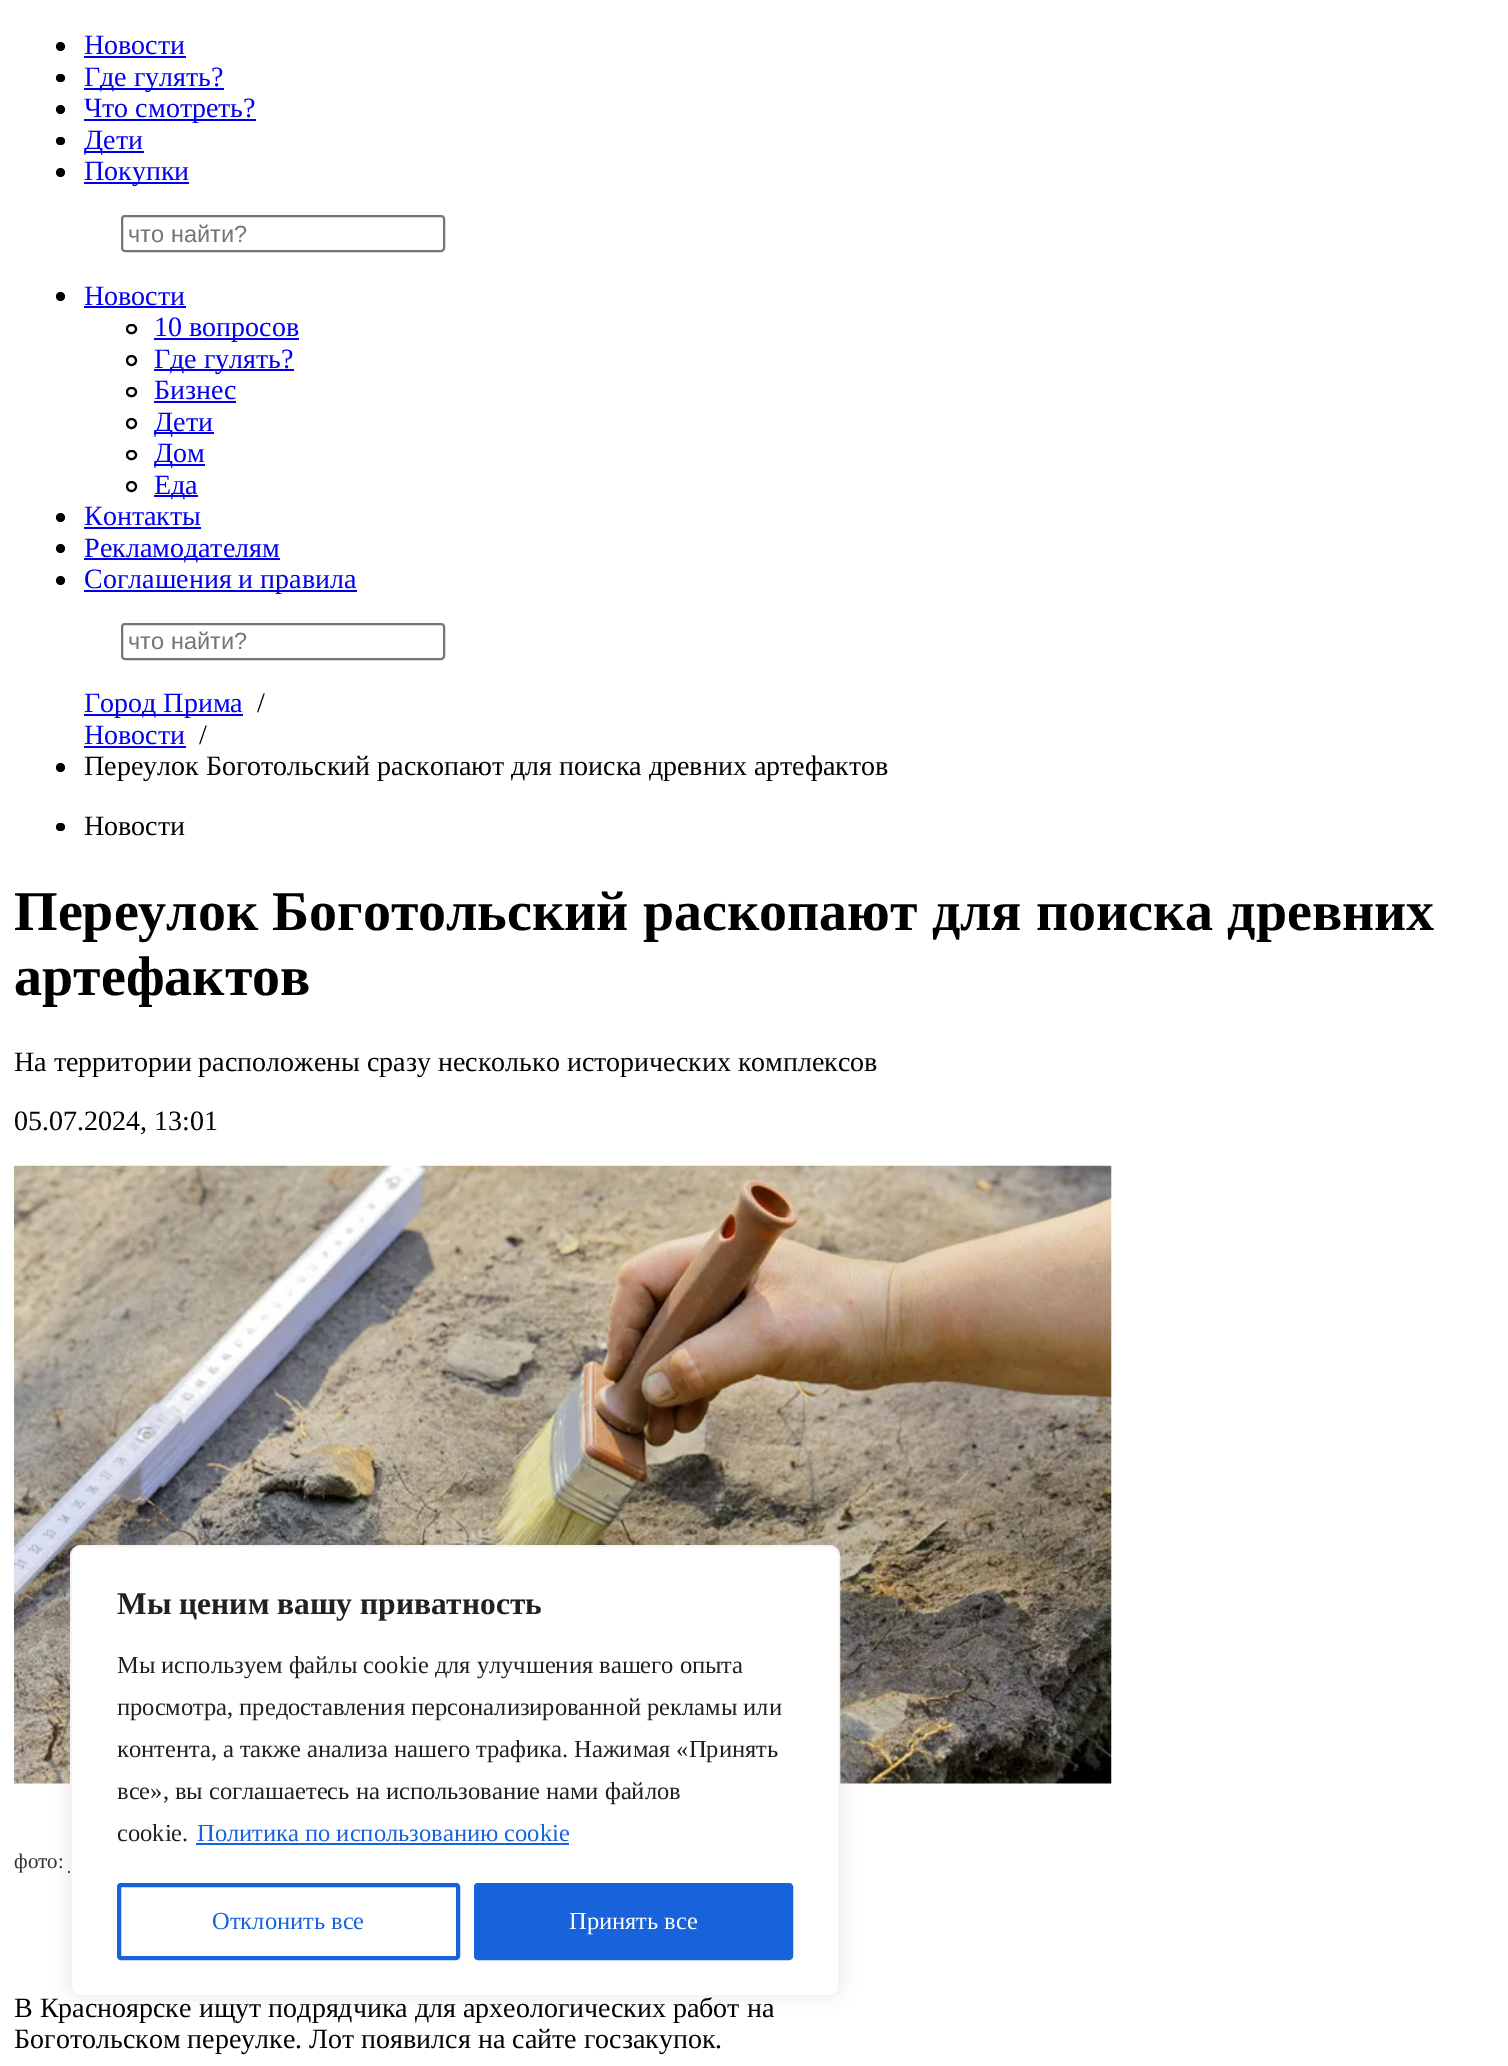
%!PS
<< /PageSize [1508 2066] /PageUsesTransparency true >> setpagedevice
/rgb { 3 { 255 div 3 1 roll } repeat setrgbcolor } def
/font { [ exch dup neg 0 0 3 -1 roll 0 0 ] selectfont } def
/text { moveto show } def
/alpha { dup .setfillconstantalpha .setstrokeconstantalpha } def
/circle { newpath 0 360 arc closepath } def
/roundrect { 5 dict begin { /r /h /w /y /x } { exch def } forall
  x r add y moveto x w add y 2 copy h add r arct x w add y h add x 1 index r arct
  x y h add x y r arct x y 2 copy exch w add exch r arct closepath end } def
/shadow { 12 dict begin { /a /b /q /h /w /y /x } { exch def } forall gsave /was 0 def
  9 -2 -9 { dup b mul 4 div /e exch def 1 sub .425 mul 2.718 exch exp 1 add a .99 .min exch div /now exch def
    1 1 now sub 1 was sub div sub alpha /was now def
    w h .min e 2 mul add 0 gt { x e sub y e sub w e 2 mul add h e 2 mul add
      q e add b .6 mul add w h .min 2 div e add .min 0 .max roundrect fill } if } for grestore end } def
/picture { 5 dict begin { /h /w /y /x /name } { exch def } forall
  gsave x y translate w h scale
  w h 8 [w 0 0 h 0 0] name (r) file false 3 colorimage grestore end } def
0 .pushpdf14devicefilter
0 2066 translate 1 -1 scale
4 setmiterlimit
255 255 255 rgb
0 0 1508 2066 rectfill
0 0 0 rgb
60.5 46.5 4.5 circle fill
0 0 238 rgb
84 56 102 2 rectfill
0 0 0 rgb
56 74 9 8 4 roundrect fill
0 0 238 rgb
84 88 140 2 rectfill
0 0 0 rgb
60.5 109.5 4.5 circle fill
0 0 238 rgb
84 119 172 2 rectfill
0 0 0 rgb
56 137 9 8 4 roundrect fill
0 0 238 rgb
84 151 60 2 rectfill
0 0 0 rgb
60.5 172.5 4.5 circle fill
0 0 238 rgb
84 182 105 2 rectfill
118 118 118 rgb
2 setlinewidth
122 216 322 35 3 roundrect stroke
0 0 0 rgb
60.5 296.5 4.5 circle fill
0 0 238 rgb
84 306 102 2 rectfill
0 0 0 rgb
127 325 9 8 4 roundrect stroke
0 0 238 rgb
154 338 145 2 rectfill
0 0 0 rgb
131.5 360.5 4.5 circle stroke
0 0 238 rgb
154 369 140 2 rectfill
0 0 0 rgb
127 388 9 8 4 roundrect stroke
0 0 238 rgb
154 401 82 2 rectfill
0 0 0 rgb
131.5 423.5 4.5 circle stroke
0 0 238 rgb
154 432 60 2 rectfill
0 0 0 rgb
127 451 9 8 4 roundrect stroke
0 0 238 rgb
154 464 51 2 rectfill
0 0 0 rgb
131.5 486.5 4.5 circle stroke
0 0 238 rgb
154 495 44 2 rectfill
0 0 0 rgb
60.5 517.5 4.5 circle fill
0 0 238 rgb
84 527 117 2 rectfill
0 0 0 rgb
60.5 548.5 4.5 circle fill
0 0 238 rgb
84 558 196 2 rectfill
0 0 0 rgb
60.5 580.5 4.5 circle fill
0 0 238 rgb
84 590 273 2 rectfill
118 118 118 rgb
122 624 322 35 3 roundrect stroke
0 0 238 rgb
84 714 159 2 rectfill
84 746 102 2 rectfill
0 0 0 rgb
60.5 767.5 4.5 circle fill
56 823 9 8 4 roundrect fill
(img_01.rgb) 14 1165 1098 619 picture
51 51 51 rgb
68 1871 2 2 rectfill
172 171 171 rgb
70 1544 770 451 11 9 0.3 shadow
/LiberationSerif-Regular 28 font
0 0 238 rgb
(Новости) 84 54 text
(Где гулять?) 84 86 text
(Что смотреть?) 84 117 text
(Дети) 84 149 text
(Покупки) 84 180 text
/LiberationSans-Regular 23.5 font
117 117 117 rgb
(что найти?) 128 242 text
/LiberationSerif-Regular 28 font
0 0 238 rgb
(Новости) 84 305 text
(10 вопросов) 154 336 text
(Где гулять?) 154 368 text
(Бизнес) 154 399 text
(Дети) 154 431 text
(Дом) 154 462 text
(Еда) 154 494 text
(Контакты) 84 525 text
(Рекламодателям) 84 557 text
(Соглашения и правила) 84 588 text
/LiberationSans-Regular 23.5 font
117 117 117 rgb
(что найти?) 128 649 text
/LiberationSerif-Regular 28 font
0 0 238 rgb
(Город Прима) 84 712 text
0 0 0 rgb
(/) 257 712 text
0 0 238 rgb
(Новости) 84 744 text
0 0 0 rgb
(/) 199 744 text
(Переулок Боготольский раскопают для поиска древних артефактов) 84 775 text
(Новости) 84 835 text
/LiberationSerif-Bold 56 font
(Переулок Боготольский раскопают для поиска древних) 14 930 text
(артефактов) 14 995 text
/LiberationSerif-Regular 28 font
(На территории расположены сразу несколько исторических комплексов) 14 1071 text
(05.07.2024, 13:01) 14 1130 text
/LiberationSerif-Regular 21 font
51 51 51 rgb
(фото:) 14 1868 text
/LiberationSerif-Regular 28 font
0 0 0 rgb
(В Красноярске ищут подрядчика для археологических работ на) 14 2017 text
(Боготольском переулке. Лот появился на сайте госзакупок.) 14 2048 text
255 255 255 rgb
71 1546 768 450 10 roundrect gsave fill grestore
244 244 244 rgb
stroke
/LiberationSerif-Bold 31.5 font
33 33 33 rgb
(Мы ценим вашу приватность) 117 1614 text
/LiberationSerif-Regular 24.5 font
(Мы используем файлы cookie для улучшения вашего опыта) 117 1673 text
(просмотра, предоставления персонализированной рекламы или) 117 1715 text
(контента, а также анализа нашего трафика. Нажимая «Принять) 117 1757 text
(все», вы соглашаетесь на использование нами файлов) 117 1799 text
(cookie.) 117 1841 text
24 99 220 rgb
(Политика по использованию cookie) 197 1841 text
196 1843 373 2 rectfill
4 setlinewidth
119 1885 339 73 2 roundrect stroke
(Отклонить все) 212 1929 text
476 1885 315 73 2 roundrect gsave fill grestore
stroke
255 255 255 rgb
(Принять все) 569 1929 text
.poppdf14devicefilter showpage
